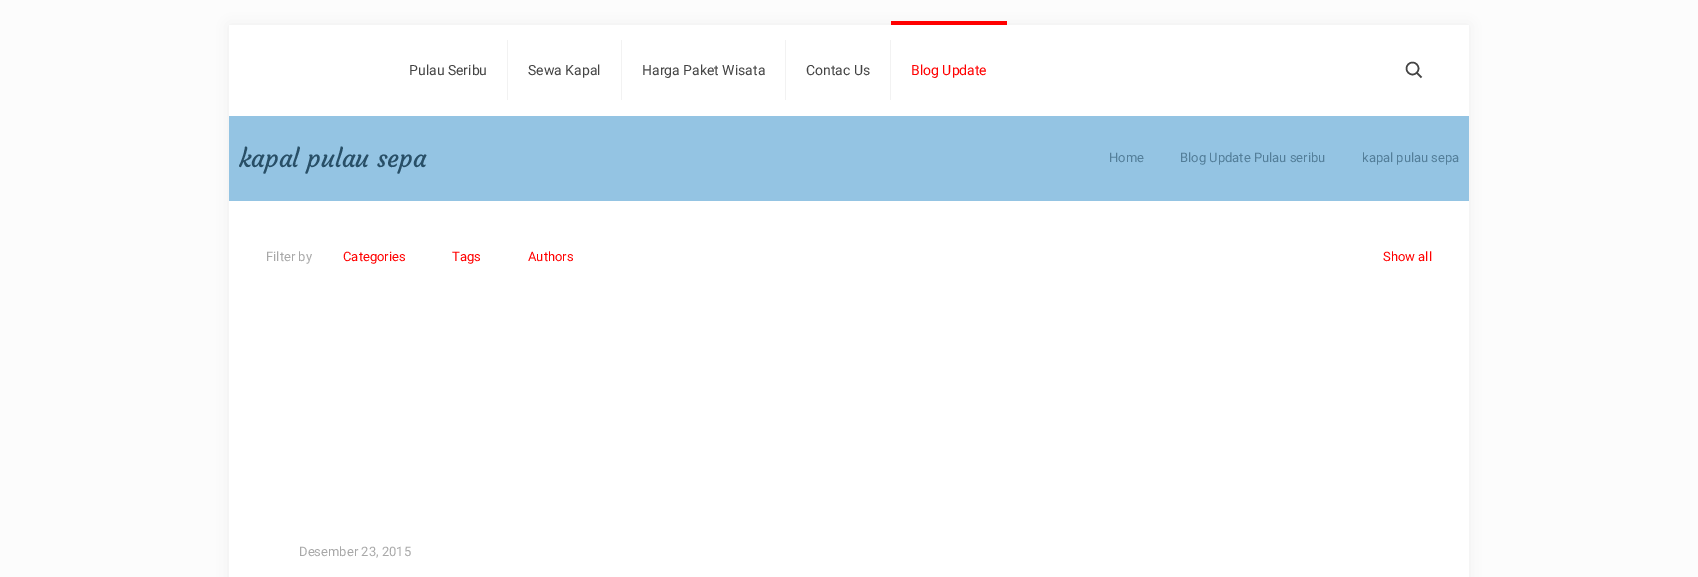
%!PS
<< /PageSize [1698 577] /PageUsesTransparency true >> setpagedevice
/rgb { 3 { 255 div 3 1 roll } repeat setrgbcolor } def
/font { [ exch dup neg 0 0 3 -1 roll 0 0 ] selectfont } def
/text { moveto show } def
/alpha { dup .setfillconstantalpha .setstrokeconstantalpha } def
/circle { newpath 0 360 arc closepath } def
/roundrect { 5 dict begin { /r /h /w /y /x } { exch def } forall
  x r add y moveto x w add y 2 copy h add r arct x w add y h add x 1 index r arct
  x y h add x y r arct x y 2 copy exch w add exch r arct closepath end } def
/shadow { 12 dict begin { /a /b /q /h /w /y /x } { exch def } forall gsave /was 0 def
  9 -2 -9 { dup b mul 4 div /e exch def 1 sub .425 mul 2.718 exch exp 1 add a .99 .min exch div /now exch def
    1 1 now sub 1 was sub div sub alpha /was now def
    w h .min e 2 mul add 0 gt { x e sub y e sub w e 2 mul add h e 2 mul add
      q e add b .6 mul add w h .min 2 div e add .min 0 .max roundrect fill } if } for grestore end } def
0 .pushpdf14devicefilter
0 577 translate 1 -1 scale
4 setmiterlimit
252 252 252 rgb
0 0 1698 577 rectfill
0 0 0 rgb
229 25 1240 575 0 7.5 0.06 shadow
255 255 255 rgb
229 25 1240 91 rectfill
242 242 242 rgb
507 40 1 60 rectfill
621 40 1 60 rectfill
785 40 1 60 rectfill
890 40 1 60 rectfill
255 0 0 rgb
891 21 116 4 rectfill
68 68 68 rgb
1.5 setlinewidth
1412.5 68.5 6 circle stroke
1416.5 72.5 moveto 5 5 rlineto stroke
148 196 227 rgb
229 116 1240 85 rectfill
255 255 255 rgb
229 201 1240 376 rectfill
/Roboto-Regular 14 font
68 68 68 rgb
(Pulau Seribu) 409 75 text
(Sewa Kapal) 528 75 text
(Harga Paket Wisata) 642 75 text
(Contac Us) 806 75 text
255 0 0 rgb
(Blog Update) 911 75 text
/Courgette-Regular 25 font
40 79 103 rgb
(kapal pulau sepa) 239 167 text
/Roboto-Regular 13 font
83 126 153 rgb
(Home) 1109 162 text
(Blog Update Pulau seribu) 1180 162 text
(kapal pulau sepa) 1362 162 text
168 168 168 rgb
(Filter by) 266 261 text
255 0 0 rgb
(Categories) 343 261 text
(Tags) 452 261 text
(Authors) 528 261 text
(Show all) 1383 261 text
168 168 168 rgb
(Desember 23, 2015) 299 556 text
.poppdf14devicefilter showpage
